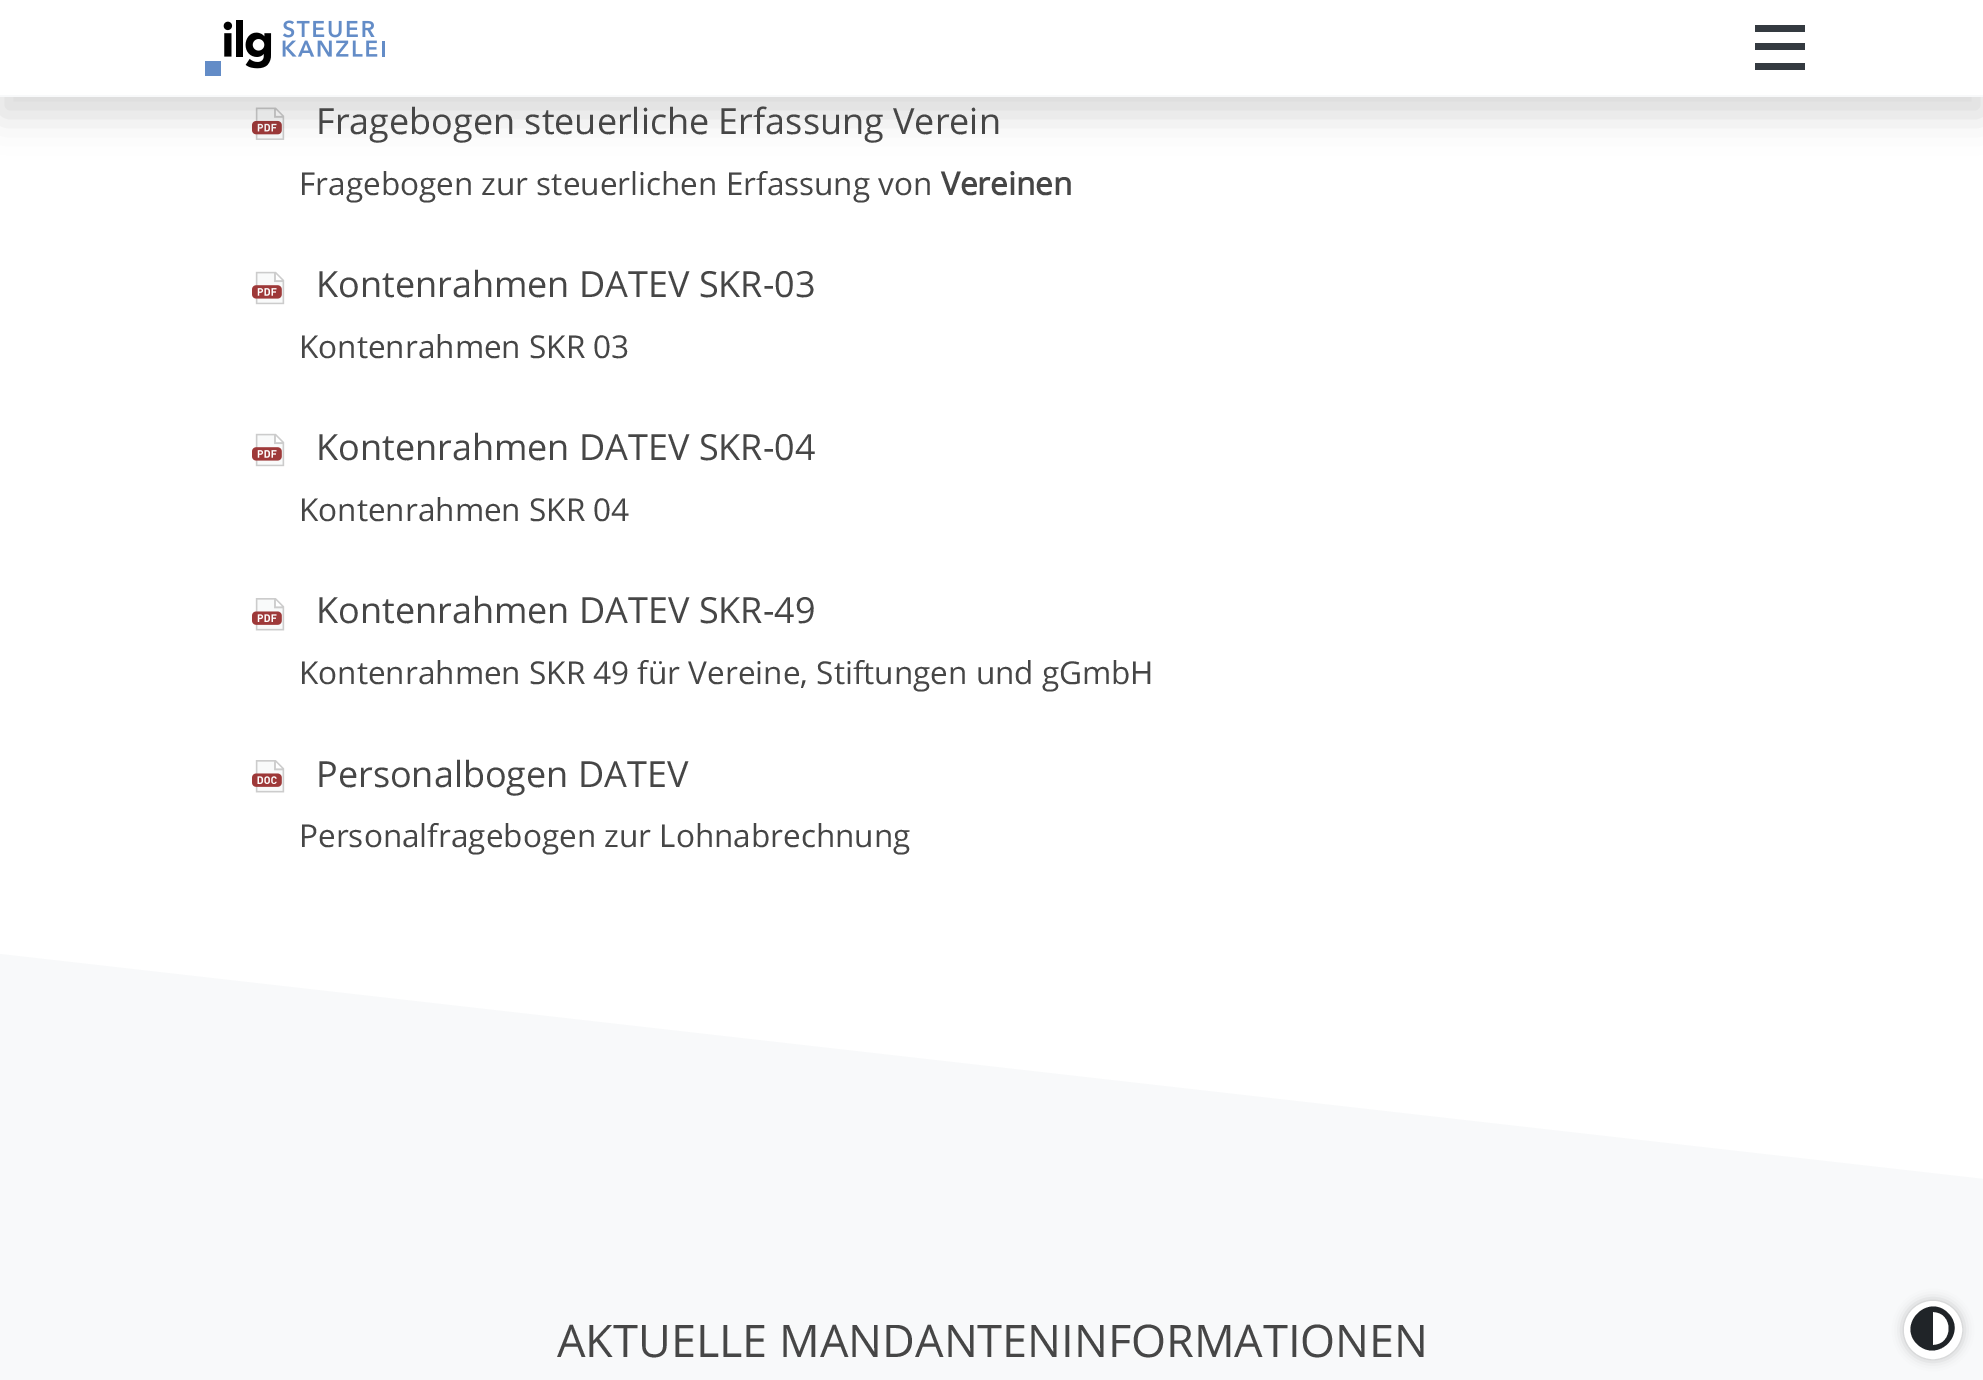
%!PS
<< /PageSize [1983 1380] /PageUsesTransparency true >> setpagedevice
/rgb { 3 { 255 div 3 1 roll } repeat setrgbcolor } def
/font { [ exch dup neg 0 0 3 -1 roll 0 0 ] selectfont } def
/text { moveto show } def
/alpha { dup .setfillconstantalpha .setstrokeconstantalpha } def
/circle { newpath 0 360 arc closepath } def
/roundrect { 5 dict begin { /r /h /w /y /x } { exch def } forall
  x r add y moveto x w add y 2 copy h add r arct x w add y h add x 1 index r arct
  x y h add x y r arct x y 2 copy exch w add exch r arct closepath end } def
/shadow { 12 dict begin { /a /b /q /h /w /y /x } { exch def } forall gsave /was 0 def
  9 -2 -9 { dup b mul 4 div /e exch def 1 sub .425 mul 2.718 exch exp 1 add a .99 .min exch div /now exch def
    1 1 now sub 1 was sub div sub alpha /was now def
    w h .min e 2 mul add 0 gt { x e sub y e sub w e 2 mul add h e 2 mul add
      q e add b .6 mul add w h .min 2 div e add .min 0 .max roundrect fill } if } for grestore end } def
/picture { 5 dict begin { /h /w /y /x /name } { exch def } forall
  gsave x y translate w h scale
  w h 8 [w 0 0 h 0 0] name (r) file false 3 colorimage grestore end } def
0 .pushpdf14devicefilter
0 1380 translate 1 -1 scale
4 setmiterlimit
255 255 255 rgb
0 0 1983 1380 rectfill
(img_02.rgb) 252 107 33 33 picture
0 0 0 rgb
0 18 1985 97 0 18 0.15 shadow
255 255 255 rgb
0 0 1983 95 rectfill
248 249 250 rgb
0 95 1983 2 rectfill
(img_01.rgb) 205 20 180 56 picture
52 58 64 rgb
1755 25 50 7 rectfill
1755 43 50 7 rectfill
1755 63 50 7 rectfill
(img_03.rgb) 252 271 33 34 picture
(img_03.rgb) 252 433 33 34 picture
(img_04.rgb) 252 598 33 33 picture
(img_05.rgb) 252 760 33 33 picture
248 249 250 rgb
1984 1179 moveto -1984 0 rlineto 0 -225 rlineto closepath fill
0 1179 1983 201 rectfill
0 0 0 rgb
1904 1301 58 58 29 5.5 0.25 shadow
255 255 255 rgb
1933 1330 28 circle gsave fill grestore
2 setlinewidth
stroke
32 36 40 rgb
1917 1344 moveto -20 -20 11 -51 31 -31 rcurveto 20 20 -10 51 -31 31 rcurveto closepath 1933 1345 moveto 21 0 21 -33 0 -33 rcurveto closepath fill
/OpenSans-Regular 36 font
70 70 70 rgb
(Fragebogen steuerliche Erfassung Verein) 316 134 text
/OpenSans-Regular 31.5 font
(Fragebogen zur steuerlichen Erfassung von) 299 195 text
/OpenSans-Bold 31.5 font
(Vereinen) 941 195 text
/OpenSans-Regular 36 font
(Kontenrahmen DATEV SKR-03) 316 297 text
/OpenSans-Regular 31.5 font
(Kontenrahmen SKR 03) 299 358 text
/OpenSans-Regular 36 font
(Kontenrahmen DATEV SKR-04) 316 460 text
/OpenSans-Regular 31.5 font
(Kontenrahmen SKR 04) 299 521 text
/OpenSans-Regular 36 font
(Kontenrahmen DATEV SKR-49) 316 623 text
/OpenSans-Regular 31.5 font
(Kontenrahmen SKR 49 für Vereine, Stiftungen und gGmbH) 299 684 text
/OpenSans-Regular 36 font
(Personalbogen DATEV) 316 787 text
/OpenSans-Regular 31.5 font
(Personalfragebogen zur Lohnabrechnung) 299 847 text
/OpenSans-Regular 45 font
(AKTUELLE MANDANTENINFORMATIONEN) 557 1357 text
.poppdf14devicefilter showpage
